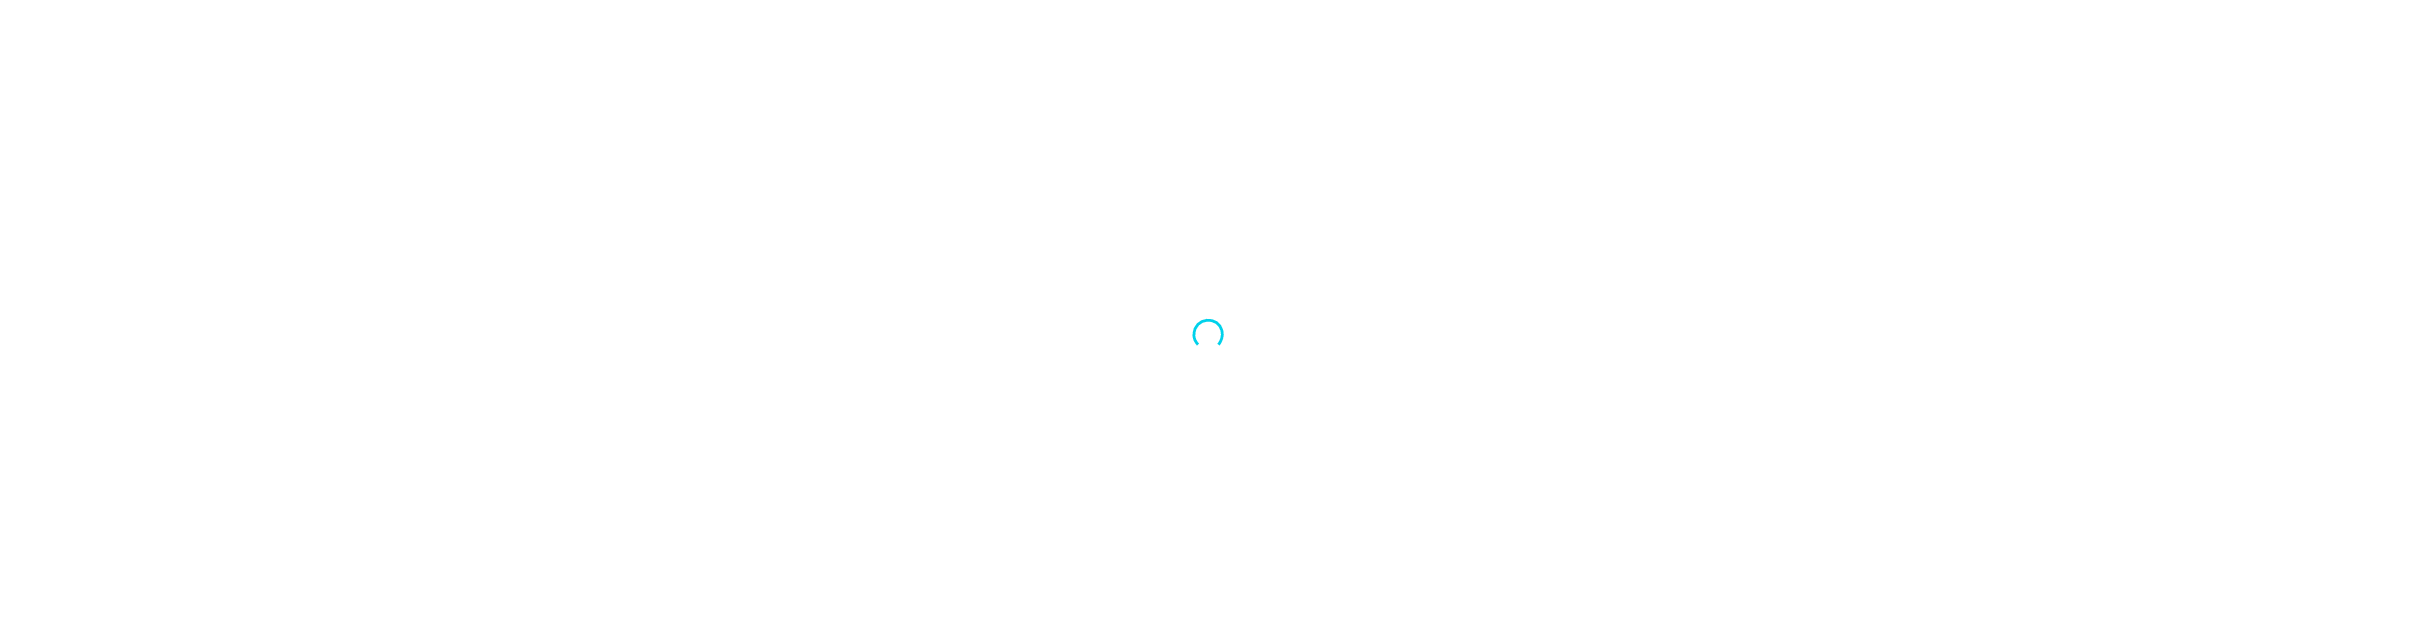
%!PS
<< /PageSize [2414 637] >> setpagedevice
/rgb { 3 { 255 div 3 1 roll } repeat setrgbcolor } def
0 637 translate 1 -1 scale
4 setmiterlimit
255 255 255 rgb
0 0 2414 637 rectfill
0 210 235 rgb
2.5 setlinewidth
1198 344.5 moveto -2.5 -2.5 -4.5 -6.5 -4 -10 rcurveto 0 -17.5 25 -19.5 28 -3 rcurveto 1 4.5 -0.5 9.5 -3.5 13 rcurveto stroke
showpage
